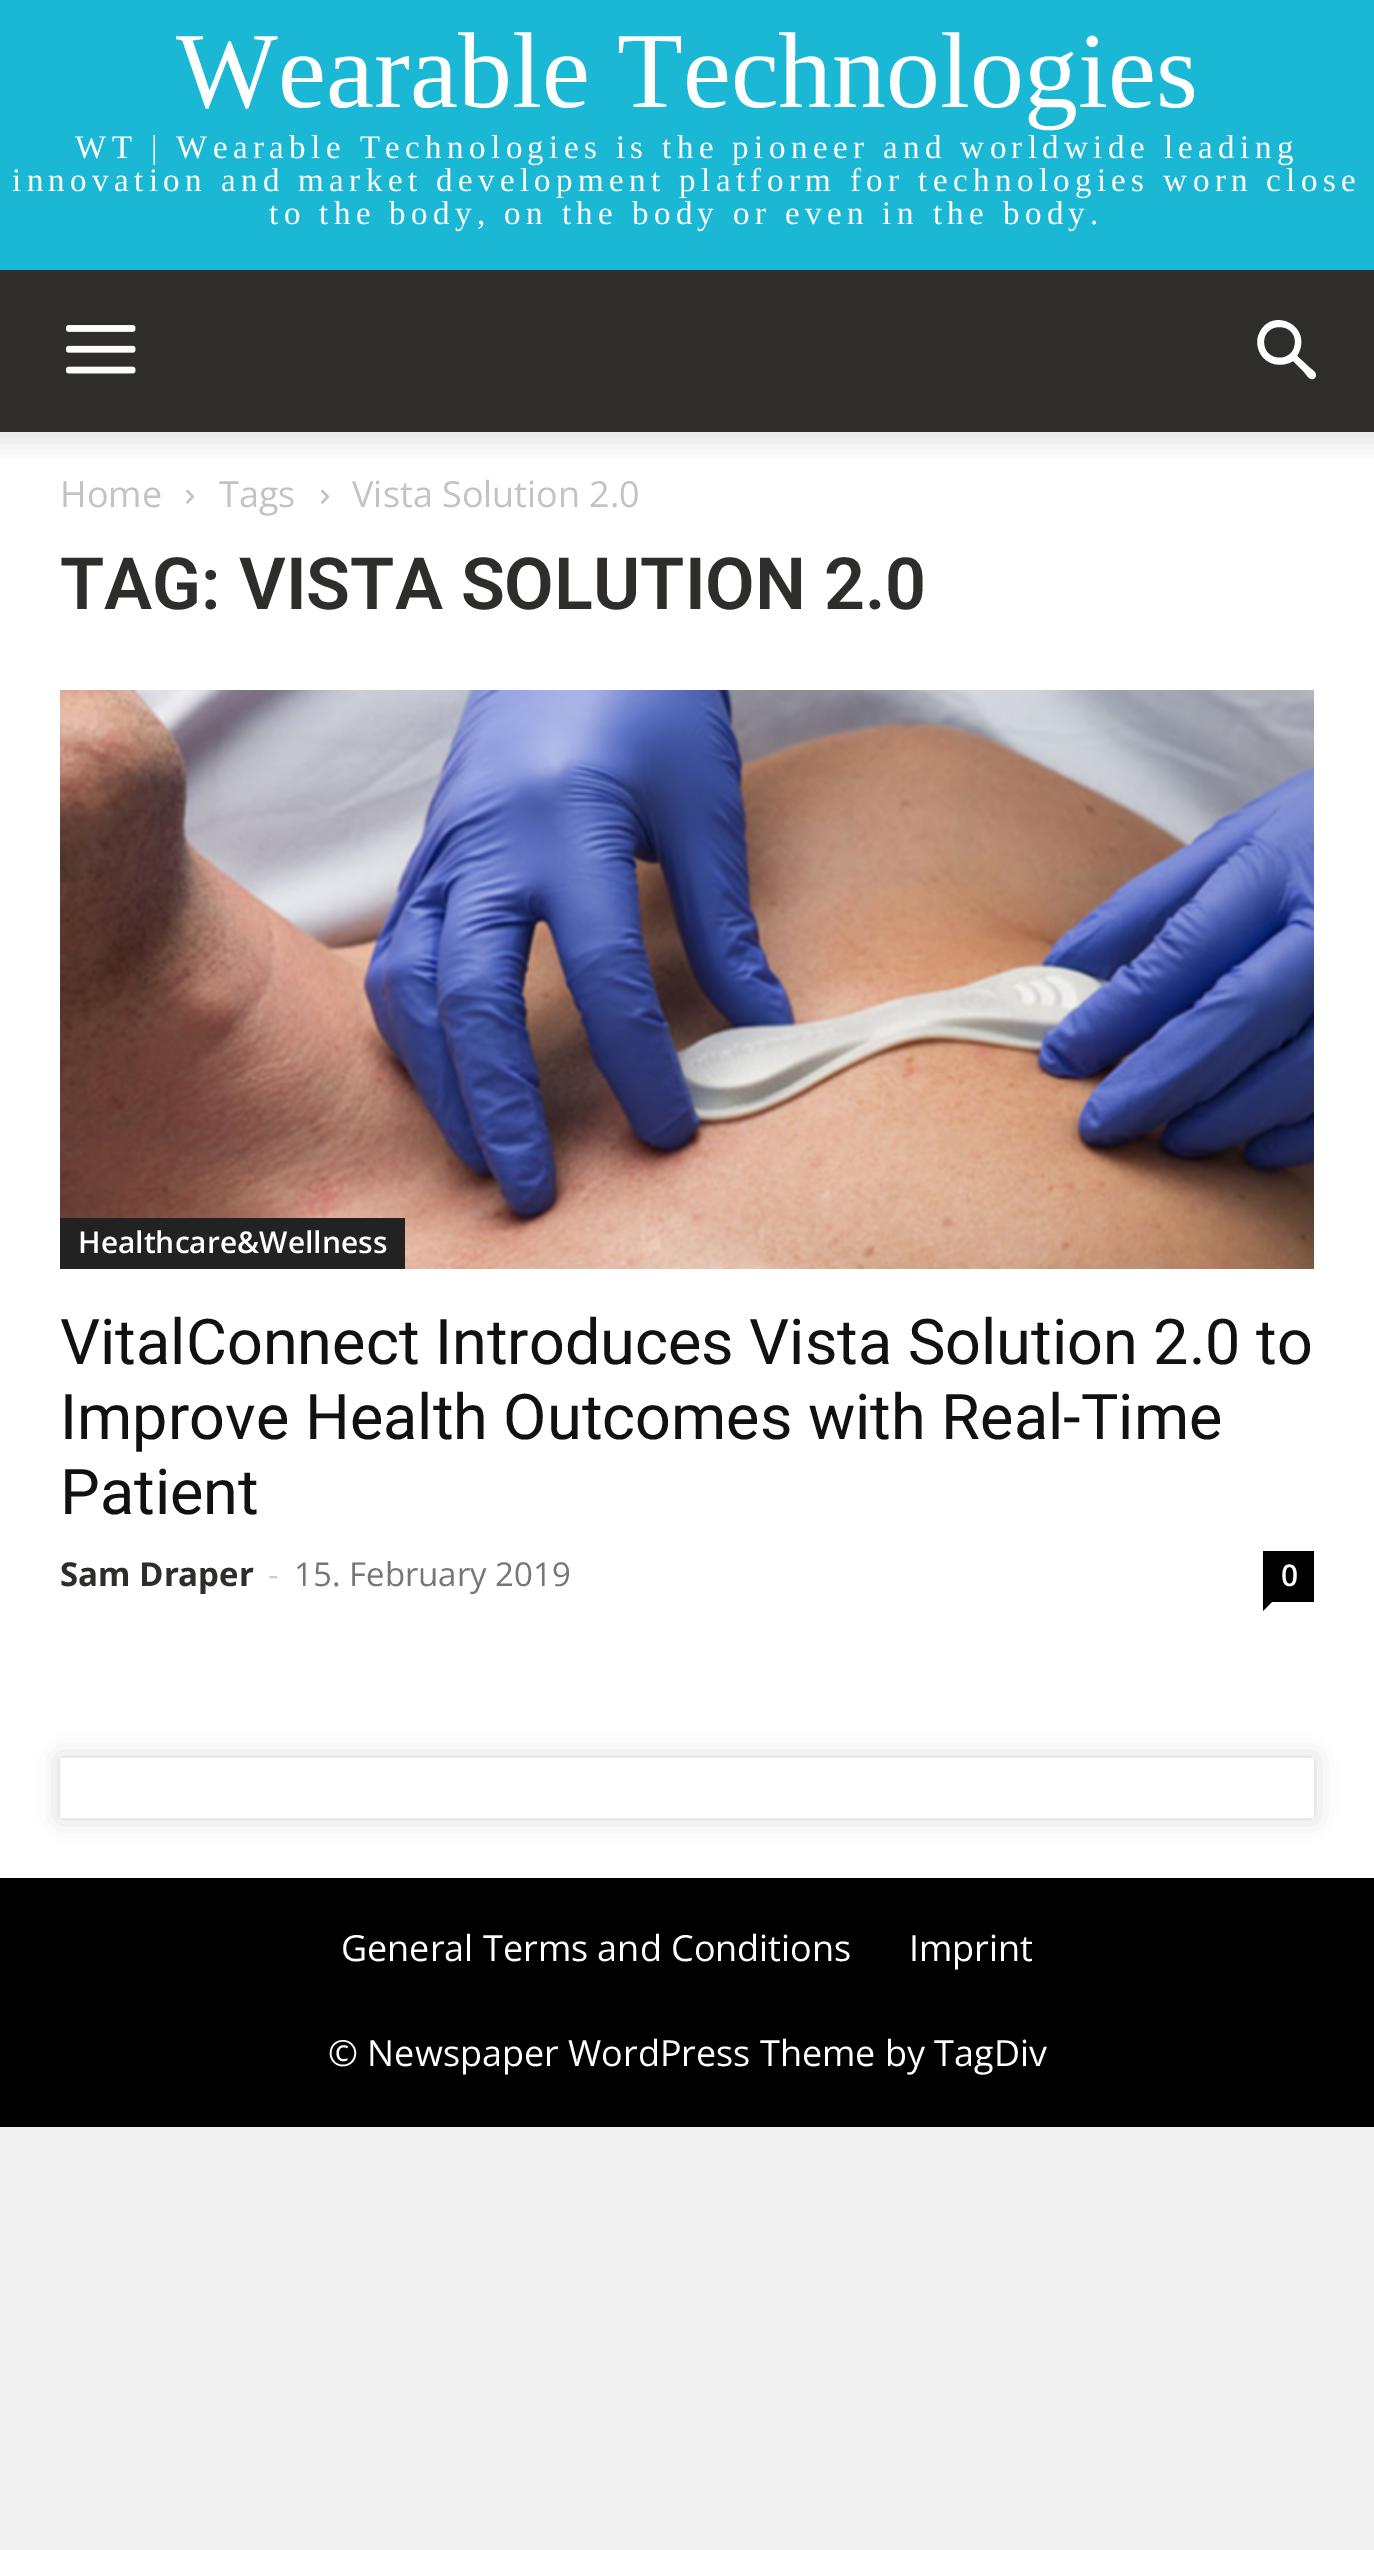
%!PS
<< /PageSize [1374 2550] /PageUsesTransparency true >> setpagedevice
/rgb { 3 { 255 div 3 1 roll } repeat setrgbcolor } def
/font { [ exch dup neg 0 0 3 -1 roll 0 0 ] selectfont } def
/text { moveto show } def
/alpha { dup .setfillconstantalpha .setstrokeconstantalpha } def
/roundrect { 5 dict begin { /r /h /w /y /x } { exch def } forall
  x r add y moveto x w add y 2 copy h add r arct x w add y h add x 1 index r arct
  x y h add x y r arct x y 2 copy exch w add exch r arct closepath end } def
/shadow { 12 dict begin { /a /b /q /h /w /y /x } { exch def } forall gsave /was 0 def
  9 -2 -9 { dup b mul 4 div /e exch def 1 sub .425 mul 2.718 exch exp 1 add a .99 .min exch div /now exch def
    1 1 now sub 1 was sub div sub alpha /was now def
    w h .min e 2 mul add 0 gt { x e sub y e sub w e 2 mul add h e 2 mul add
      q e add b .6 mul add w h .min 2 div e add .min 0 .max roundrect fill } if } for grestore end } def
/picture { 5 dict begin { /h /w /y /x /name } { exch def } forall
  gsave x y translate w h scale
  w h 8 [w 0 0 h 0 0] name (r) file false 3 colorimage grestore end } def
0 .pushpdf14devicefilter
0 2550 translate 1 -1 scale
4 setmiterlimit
241 241 241 rgb
0 0 1374 2550 rectfill
26 184 213 rgb
0 0 1374 270 rectfill
46 45 44 rgb
0 270 1374 162 rectfill
(img_01.rgb) 66 325 70 49 picture
255 255 255 rgb
1295 342 moveto 0 21 -31 21 -31 0 rcurveto 0 -20 31 -20 31 0 rcurveto closepath 1316 375 moveto 0 -3 -5 -6 -7 -8 rcurveto -12 -11 rlineto 18 -30 -26 -51 -38 -22 rcurveto -3 6 -2 13 1 19 rcurveto 6 12 22 15 33 8 rcurveto 11 11 rlineto 2 2 5 8 9 7 rcurveto 1 0 3 -2 3 -4 rcurveto closepath fill
0 432 1374 1446 rectfill
(img_02.rgb) 0 432 1374 26 picture
(img_03.rgb) 186 489 9 15 picture
(img_03.rgb) 321 489 9 15 picture
(img_04.rgb) 60 690 1254 579 picture
34 34 34 rgb
60 1218 345 51 rectfill
0 0 0 rgb
1263 1551 51 51 rectfill
1263 1602 moveto 9 0 rlineto -9 9 rlineto closepath fill
60 1758 1254 60 0 12 0.17 shadow
255 255 255 rgb
60 1758 1254 60 rectfill
0 0 0 rgb
0 1878 1374 249 rectfill
/LiberationSerif-Regular 108 font
255 255 255 rgb
(Wearable Technologies) 176 107 text
/LiberationSerif-Regular 33 font
75 158 moveto 5.4 0 (WT | Wearable Technologies is the pioneer and worldwide leading) ashow
12 191 moveto 5.4 0 (innovation and market development platform for technologies worn close) ashow
269 224 moveto 5.4 0 (to the body, on the body or even in the body.) ashow
/OpenSans-Regular 36 font
195 195 195 rgb
(Home) 60 507 text
(Tags) 219 507 text
(Vista Solution 2.0) 352 507 text
/Roboto-SemiBold 72 font
46 45 44 rgb
(TAG: VISTA SOLUTION 2.0) 60 609 text
/OpenSans-SemiBold 30 font
255 255 255 rgb
(Healthcare&Wellness) 78 1253 text
/Roboto-Regular 63 font
17 17 17 rgb
(VitalConnect Introduces Vista Solution 2.0 to) 60 1364 text
(Improve Health Outcomes with Real-Time) 60 1439 text
(Patient) 60 1514 text
/OpenSans-Bold 33 font
46 45 44 rgb
(Sam Draper) 60 1586 text
/OpenSans-Regular 33 font
204 204 204 rgb
(-) 268 1586 text
118 118 118 rgb
(15. February 2019) 294 1586 text
/OpenSans-SemiBold 30 font
255 255 255 rgb
(0) 1281 1586 text
/OpenSans-Regular 36 font
(General Terms and Conditions) 341 1961 text
(Imprint) 909 1961 text
(© Newspaper WordPress Theme by TagDiv) 328 2066 text
.poppdf14devicefilter showpage
